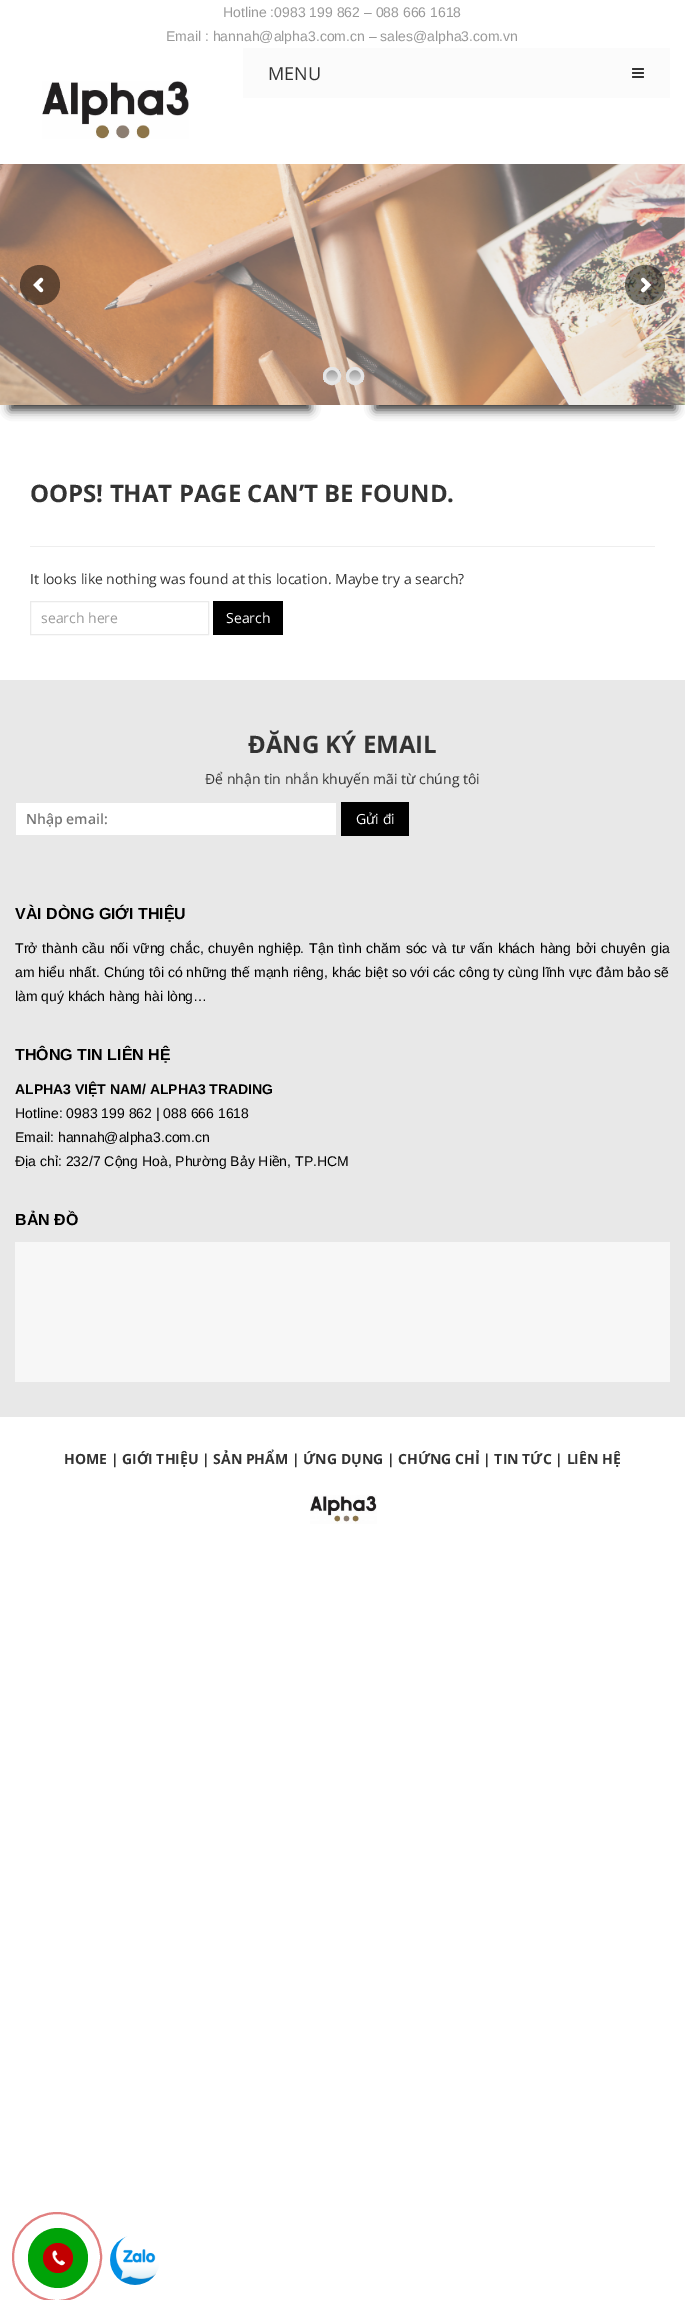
%!PS
<< /PageSize [685 2300] /PageUsesTransparency true >> setpagedevice
/rgb { 3 { 255 div 3 1 roll } repeat setrgbcolor } def
/font { [ exch dup neg 0 0 3 -1 roll 0 0 ] selectfont } def
/text { moveto show } def
/alpha { dup .setfillconstantalpha .setstrokeconstantalpha } def
/circle { newpath 0 360 arc closepath } def
/roundrect { 5 dict begin { /r /h /w /y /x } { exch def } forall
  x r add y moveto x w add y 2 copy h add r arct x w add y h add x 1 index r arct
  x y h add x y r arct x y 2 copy exch w add exch r arct closepath end } def
/shadow { 12 dict begin { /a /b /q /h /w /y /x } { exch def } forall gsave /was 0 def
  9 -2 -9 { dup b mul 4 div /e exch def 1 sub .425 mul 2.718 exch exp 1 add a .99 .min exch div /now exch def
    1 1 now sub 1 was sub div sub alpha /was now def
    w h .min e 2 mul add 0 gt { x e sub y e sub w e 2 mul add h e 2 mul add
      q e add b .6 mul add w h .min 2 div e add .min 0 .max roundrect fill } if } for grestore end } def
/picture { 5 dict begin { /h /w /y /x /name } { exch def } forall
  gsave x y translate w h scale
  w h 8 [w 0 0 h 0 0] name (r) file false 3 colorimage grestore end } def
0 .pushpdf14devicefilter
0 2300 translate 1 -1 scale
4 setmiterlimit
255 255 255 rgb
0 0 685 2300 rectfill
251 251 251 rgb
243 48 427 50 rectfill
(img_01.rgb) 632 68 12 10 picture
(img_02.rgb) 42 81 147 58 picture
0 0 0 rgb
10 384 300 26 0 5 0.8 shadow
375 384 300 26 0 5 0.8 shadow
233 233 233 rgb
0 164 685 241 rectfill
(img_03.rgb) 0 164 685 241 picture
0.5 alpha
0 0 0 rgb
40 285 20 circle fill
1 alpha
(img_04.rgb) 33 277 11 16 picture
0.5 alpha
645 285 20 circle fill
1 alpha
(img_05.rgb) 641 277 11 16 picture
gsave
323 367 18 18 9 roundrect clip newpath
gsave 323 370 moveto 18 0 rlineto 0 12 rlineto -18 0 rlineto closepath clip newpath
<< /ShadingType 2 /ColorSpace /DeviceRGB /Coords [332 370 332 382] /Extend [true true] /Function << /FunctionType 2 /Domain [0 1] /C0 [0.6 0.6 0.6] /C1 [0.882 0.882 0.882] /N 1 >> >> shfill grestore
grestore
229 229 229 rgb
3 setlinewidth
332 376 7.5 circle stroke
gsave
346 367 18 18 9 roundrect clip newpath
gsave 346 370 moveto 18 0 rlineto 0 12 rlineto -18 0 rlineto closepath clip newpath
<< /ShadingType 2 /ColorSpace /DeviceRGB /Coords [355 370 355 382] /Extend [true true] /Function << /FunctionType 2 /Domain [0 1] /C0 [0.6 0.6 0.6] /C1 [0.882 0.882 0.882] /N 1 >> >> shfill grestore
grestore
355 376 7.5 circle stroke
238 238 238 rgb
30 546 625 1 rectfill
234 234 234 rgb
1 setlinewidth
30.5 601.5 178 33 rectstroke
0 0 0 rgb
213 601 70 34 rectfill
232 232 232 rgb
0 680 685 737 rectfill
255 255 255 rgb
16 803 320 32 rectfill
0 0 0 rgb
341 802 68 34 rectfill
247 247 247 rgb
15 1242 655 140 rectfill
(img_06.rgb) 310 1495 67 29 picture
225 128 128 rgb
2 setlinewidth
57 2257 44 circle stroke
0 163 8 rgb
58 2258 30 circle fill
194 0 0 rgb
58 2258 15 circle fill
(img_07.rgb) 52 2250 13 16 picture
(img_08.rgb) 110 2236 49 49 picture
/LiberationSans-Regular 14 font
153 153 153 rgb
(Hotline :0983 199 862 – 088 666 1618) 223 17 text
(Email : hannah@alpha3.com.cn – sales@alpha3.com.vn) 166 41 text
/OpenSans-Regular 18 font
51 51 51 rgb
(MENU) 268 80 text
/OpenSans-Bold 24 font
(OOPS! THAT PAGE CAN’T BE FOUND.) 30 502 text
/OpenSans-Regular 14 font
(It looks like nothing was found at this location. Maybe try a search?) 30 584 text
153 153 153 rgb
(search here) 41 623 text
255 255 255 rgb
(Search) 226 623 text
/OpenSans-Bold 24 font
51 51 51 rgb
(ĐĂNG KÝ EMAIL) 248 753 text
/OpenSans-Regular 14 font
(Để nhận tin nhắn khuyến mãi từ chúng tôi) 205 784 text
/OpenSans-SemiBold 14 font
117 117 117 rgb
(Nhập email:) 26 824 text
/OpenSans-Regular 14 font
255 255 255 rgb
(Gửi đi) 356 824 text
/LiberationSans-Bold 16 font
0 0 0 rgb
(VÀI DÒNG GIỚI THIỆU) 15 919 text
/LiberationSans-Regular 14 font
15 953 moveto 1 0 32 (Trở thành cầu nối vững chắc, chuyên nghiệp. Tận tình chăm sóc và tư vấn khách hàng bởi chuyên gia) widthshow
(am hiểu nhất. Chúng tôi có những thế mạnh riêng, khác biệt so với các công ty cùng lĩnh vực đảm bảo sẽ) 15 977 text
(làm quý khách hàng hài lòng…) 15 1001 text
/LiberationSans-Bold 16 font
(THÔNG TIN LIÊN HỆ) 15 1060 text
/LiberationSans-Bold 14 font
(ALPHA3 VIỆT NAM/ ALPHA3 TRADING) 15 1094 text
/LiberationSans-Regular 14 font
(Hotline: 0983 199 862 | 088 666 1618) 15 1118 text
(Email: hannah@alpha3.com.cn) 15 1142 text
(Địa chỉ: 232/7 Cộng Hoà, Phường Bảy Hiền, TP.HCM) 15 1166 text
/LiberationSans-Bold 16 font
(BẢN ĐỒ) 15 1225 text
/OpenSans-Bold 14 font
51 51 51 rgb
(HOME | GIỚI THIỆU | SẢN PHẨM | ỨNG DỤNG | CHỨNG CHỈ | TIN TỨC | LIÊN HỆ) 64 1464 text
.poppdf14devicefilter showpage
